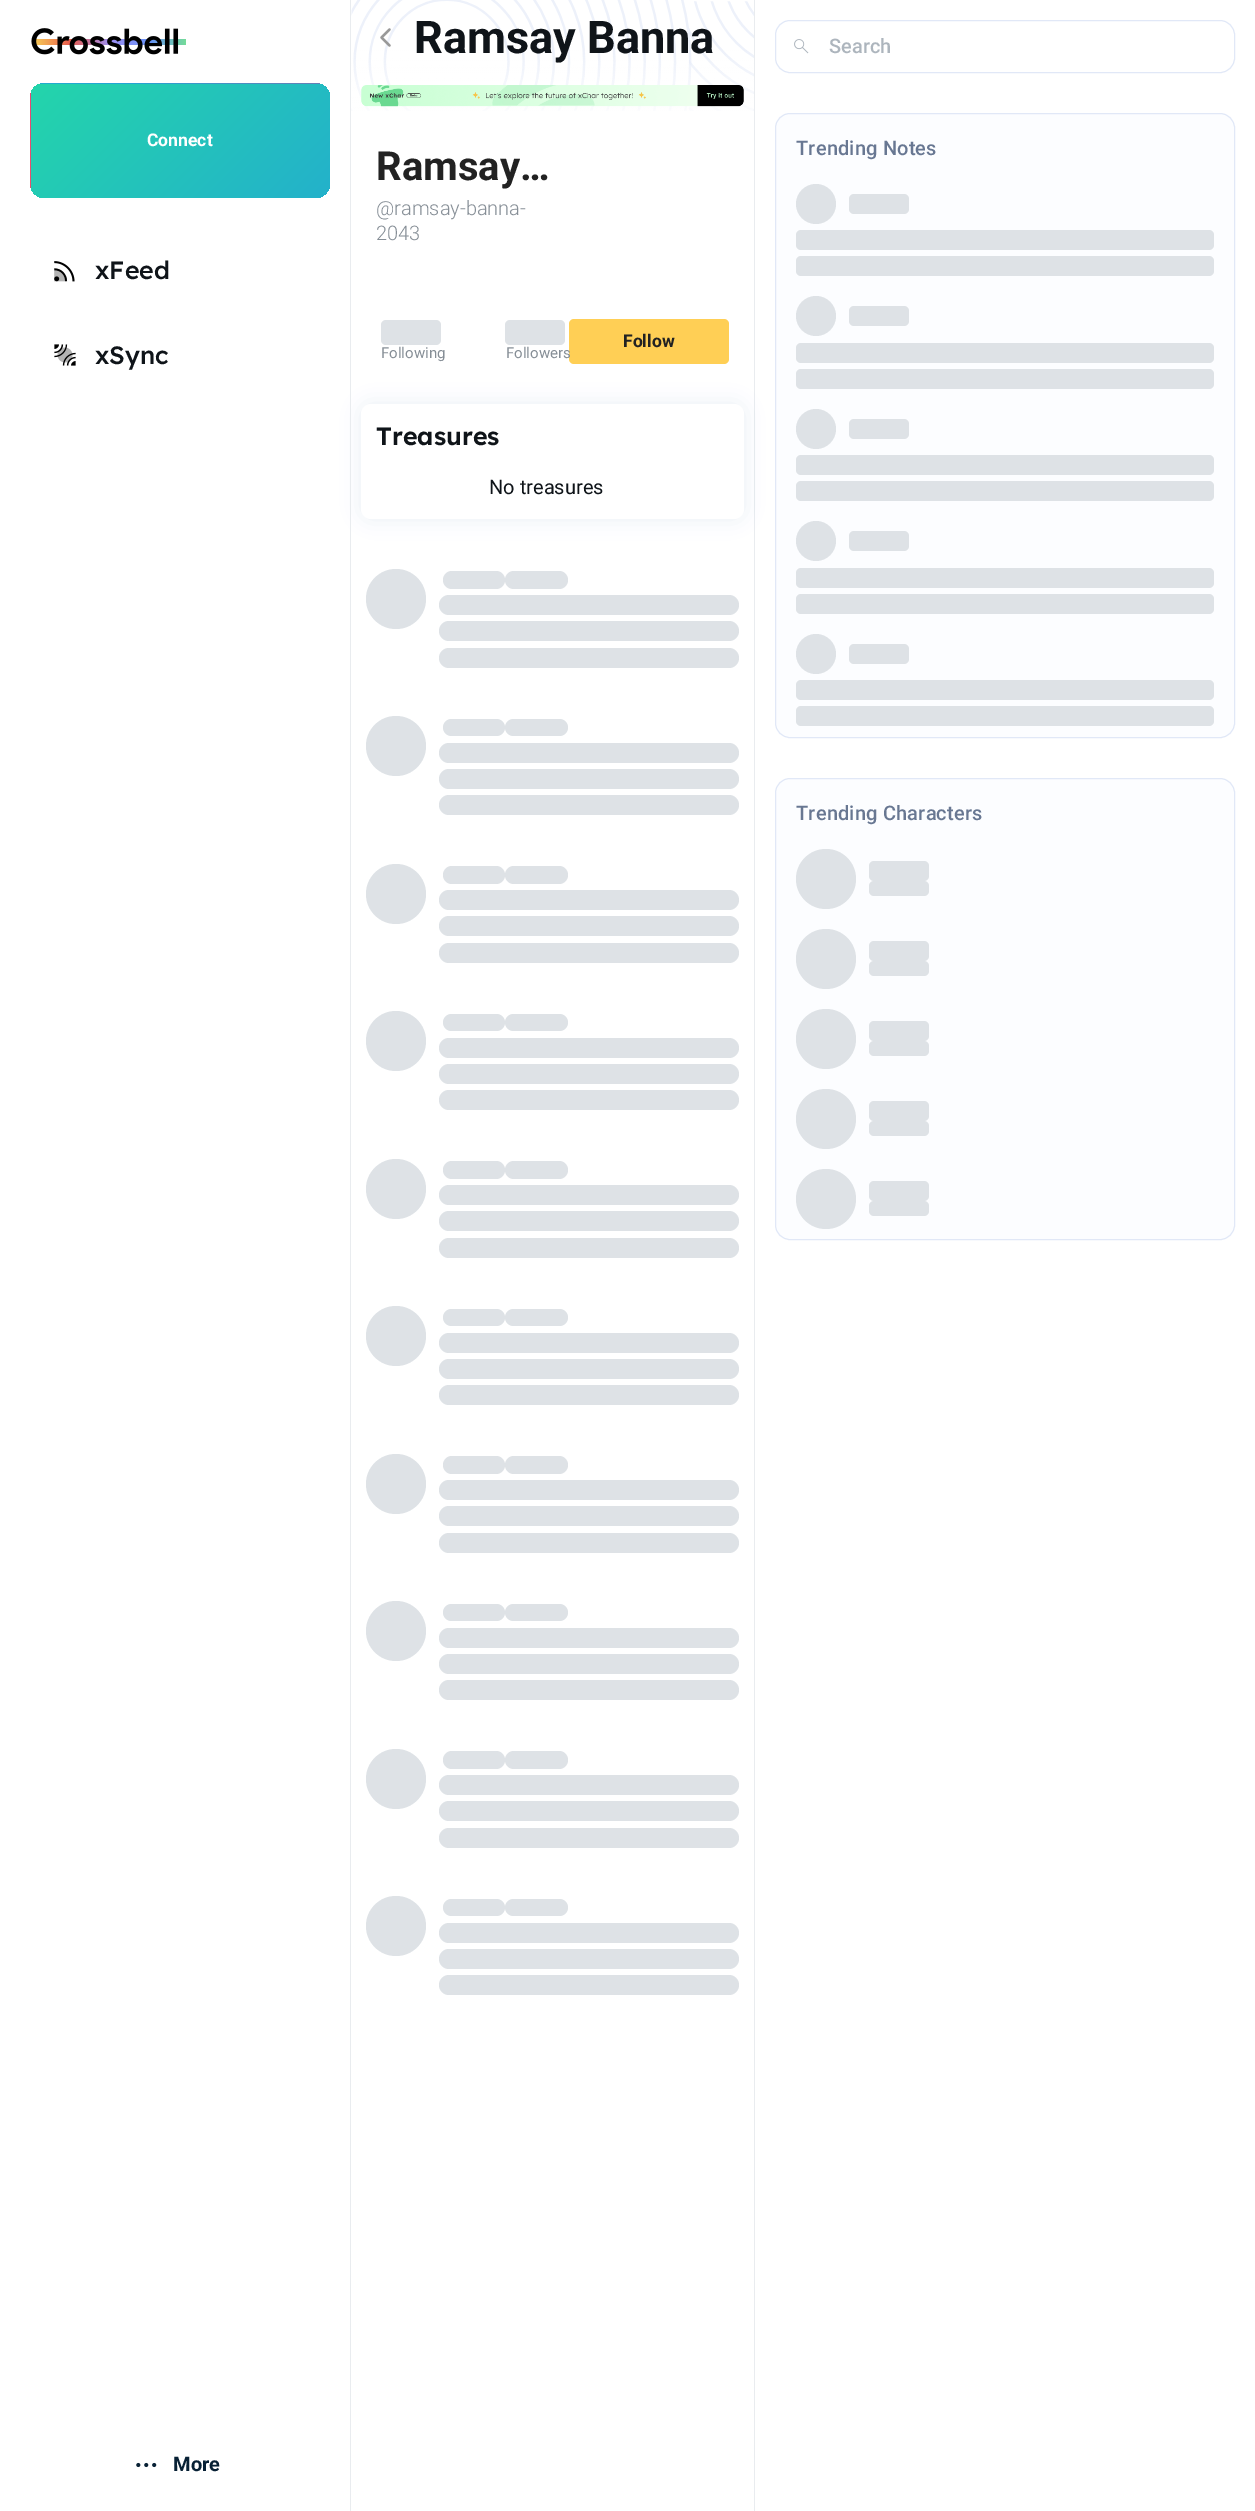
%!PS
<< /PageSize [1255 2511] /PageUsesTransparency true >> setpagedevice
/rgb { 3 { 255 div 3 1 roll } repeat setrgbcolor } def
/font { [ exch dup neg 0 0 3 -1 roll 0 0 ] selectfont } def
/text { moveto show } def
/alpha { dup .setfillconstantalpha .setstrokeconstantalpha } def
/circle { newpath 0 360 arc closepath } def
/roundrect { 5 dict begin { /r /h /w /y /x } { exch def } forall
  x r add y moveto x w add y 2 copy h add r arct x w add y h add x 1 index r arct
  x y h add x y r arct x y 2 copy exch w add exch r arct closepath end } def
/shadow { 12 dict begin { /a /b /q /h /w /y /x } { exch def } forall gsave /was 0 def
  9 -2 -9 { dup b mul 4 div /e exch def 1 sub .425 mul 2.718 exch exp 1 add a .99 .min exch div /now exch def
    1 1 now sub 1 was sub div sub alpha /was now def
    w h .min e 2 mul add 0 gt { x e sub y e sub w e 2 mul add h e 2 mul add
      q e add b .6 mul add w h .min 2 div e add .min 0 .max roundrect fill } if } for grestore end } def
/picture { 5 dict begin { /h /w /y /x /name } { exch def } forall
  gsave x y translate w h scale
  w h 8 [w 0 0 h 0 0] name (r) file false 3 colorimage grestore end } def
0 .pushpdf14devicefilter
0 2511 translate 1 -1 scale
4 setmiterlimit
255 255 255 rgb
0 0 1255 2511 rectfill
233 236 239 rgb
754 0 1 2511 rectfill
38 108 158 rgb
361 404 383 115 10 9.5 0.1 shadow
233 236 239 rgb
350 0 1 2511 rectfill
(img_01.rgb) 31 28 155 27 picture
gsave
30 83 300 115 15 roundrect clip newpath
gsave 40 83 moveto 280 0 rlineto 0 1 rlineto -280 0 rlineto closepath clip newpath
<< /ShadingType 2 /ColorSpace /DeviceRGB /Coords [1036 269 216 -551] /Extend [true true] /Function << /FunctionType 3 /Domain [0 1] /Functions [<< /FunctionType 2 /Domain [0 1] /C0 [0.933 0.467 0.322] /C1 [0.906 0.235 0.494] /N 1 >> << /FunctionType 2 /Domain [0 1] /C0 [0.906 0.235 0.494] /C1 [0.137 0.651 0.835] /N 1 >> << /FunctionType 2 /Domain [0 1] /C0 [0.137 0.651 0.835] /C1 [0.137 0.835 0.671] /N 1 >>] /Bounds [0.33 0.67] /Encode [0 1 0 1 0 1] >> >> shfill grestore
gsave 30 93 moveto 1 0 rlineto 0 95 rlineto -1 0 rlineto closepath clip newpath
<< /ShadingType 2 /ColorSpace /DeviceRGB /Coords [-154 719 -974 -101] /Extend [true true] /Function << /FunctionType 3 /Domain [0 1] /Functions [<< /FunctionType 2 /Domain [0 1] /C0 [0.933 0.467 0.322] /C1 [0.906 0.235 0.494] /N 1 >> << /FunctionType 2 /Domain [0 1] /C0 [0.906 0.235 0.494] /C1 [0.137 0.651 0.835] /N 1 >> << /FunctionType 2 /Domain [0 1] /C0 [0.137 0.651 0.835] /C1 [0.137 0.835 0.671] /N 1 >>] /Bounds [0.33 0.67] /Encode [0 1 0 1 0 1] >> >> shfill grestore
gsave 31 84 moveto 299 0 rlineto 0 99 rlineto 0 8.5 -6.5 15 -15 15 rcurveto -284 0 rlineto closepath clip newpath
<< /ShadingType 2 /ColorSpace /DeviceRGB /Coords [1036 719 216 -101] /Extend [true true] /Function << /FunctionType 3 /Domain [0 1] /Functions [<< /FunctionType 2 /Domain [0 1] /C0 [0.933 0.467 0.322] /C1 [0.906 0.235 0.494] /N 1 >> << /FunctionType 2 /Domain [0 1] /C0 [0.906 0.235 0.494] /C1 [0.137 0.651 0.835] /N 1 >> << /FunctionType 2 /Domain [0 1] /C0 [0.137 0.651 0.835] /C1 [0.137 0.835 0.671] /N 1 >>] /Bounds [0.33 0.67] /Encode [0 1 0 1 0 1] >> >> shfill grestore
grestore
(img_02.rgb) 54 261 21 21 picture
(img_03.rgb) 54 344 22 22 picture
(img_04.rgb) 136 2462 21 6 picture
(img_05.rgb) 351 0 403 111 picture
153 153 153 rgb
2.3 setlinewidth
1 setlinecap
1 setlinejoin
389.5 29.5 moveto -8 8 rlineto 8 8 rlineto stroke
(img_06.rgb) 361 85 383 22 picture
222 226 230 rgb
381 320 60 25 5 roundrect fill
505 320 60 25 5 roundrect fill
255 207 85 rgb
569 319 160 45 5 roundrect fill
255 255 255 rgb
361 404 383 115 10 roundrect fill
222 226 230 rgb
396 599 30 circle fill
443 571 62 18 9 roundrect fill
505 571 63 18 9 roundrect fill
439 595 300 20 10 roundrect fill
439 621 300 20 10 roundrect fill
439 648 300 20 10 roundrect fill
396 746 30 circle fill
443 719 62 17 8.5 roundrect fill
505 719 63 17 8.5 roundrect fill
439 743 300 20 10 roundrect fill
439 769 300 20 10 roundrect fill
439 795 300 20 10 roundrect fill
396 894 30 circle fill
443 866 62 18 9 roundrect fill
505 866 63 18 9 roundrect fill
439 890 300 20 10 roundrect fill
439 916 300 20 10 roundrect fill
439 943 300 20 10 roundrect fill
396 1041 30 circle fill
443 1014 62 17 8.5 roundrect fill
505 1014 63 17 8.5 roundrect fill
439 1038 300 20 10 roundrect fill
439 1064 300 20 10 roundrect fill
439 1090 300 20 10 roundrect fill
396 1189 30 circle fill
443 1161 62 18 9 roundrect fill
505 1161 63 18 9 roundrect fill
439 1185 300 20 10 roundrect fill
439 1211 300 20 10 roundrect fill
439 1238 300 20 10 roundrect fill
396 1336 30 circle fill
443 1309 62 17 8.5 roundrect fill
505 1309 63 17 8.5 roundrect fill
439 1333 300 20 10 roundrect fill
439 1359 300 20 10 roundrect fill
439 1385 300 20 10 roundrect fill
396 1484 30 circle fill
443 1456 62 18 9 roundrect fill
505 1456 63 18 9 roundrect fill
439 1480 300 20 10 roundrect fill
439 1506 300 20 10 roundrect fill
439 1533 300 20 10 roundrect fill
396 1631 30 circle fill
443 1604 62 17 8.5 roundrect fill
505 1604 63 17 8.5 roundrect fill
439 1628 300 20 10 roundrect fill
439 1654 300 20 10 roundrect fill
439 1680 300 20 10 roundrect fill
396 1779 30 circle fill
443 1751 62 18 9 roundrect fill
505 1751 63 18 9 roundrect fill
439 1775 300 20 10 roundrect fill
439 1801 300 20 10 roundrect fill
439 1828 300 20 10 roundrect fill
396 1926 30 circle fill
443 1899 62 17 8.5 roundrect fill
505 1899 63 17 8.5 roundrect fill
439 1923 300 20 10 roundrect fill
439 1949 300 20 10 roundrect fill
439 1975 300 20 10 roundrect fill
225 232 247 rgb
1 setlinewidth
0 setlinecap
0 setlinejoin
775.5 20.5 459 52 14.5 roundrect stroke
(img_07.rgb) 794 39 15 15 picture
252 253 255 rgb
775.5 113.5 459 624 14.5 roundrect gsave fill grestore
225 232 247 rgb
stroke
222 226 230 rgb
816 204 20 circle fill
849 194 60 20 5 roundrect fill
796 230 418 20 5 roundrect fill
796 256 418 20 5 roundrect fill
816 316 20 circle fill
849 306 60 20 5 roundrect fill
796 343 418 20 5 roundrect fill
796 369 418 20 5 roundrect fill
816 429 20 circle fill
849 419 60 20 5 roundrect fill
796 455 418 20 5 roundrect fill
796 481 418 20 5 roundrect fill
816 541 20 circle fill
849 531 60 20 5 roundrect fill
796 568 418 20 5 roundrect fill
796 594 418 20 5 roundrect fill
816 654 20 circle fill
849 644 60 20 5 roundrect fill
796 680 418 20 5 roundrect fill
796 706 418 20 5 roundrect fill
252 253 255 rgb
775.5 778.5 459 461 14.5 roundrect gsave fill grestore
225 232 247 rgb
stroke
222 226 230 rgb
826 879 30 circle fill
869 861 60 20 5 roundrect fill
869 881 60 15 5 roundrect fill
826 959 30 circle fill
869 941 60 20 5 roundrect fill
869 961 60 15 5 roundrect fill
826 1039 30 circle fill
869 1021 60 20 5 roundrect fill
869 1041 60 15 5 roundrect fill
826 1119 30 circle fill
869 1101 60 20 5 roundrect fill
869 1121 60 15 5 roundrect fill
826 1199 30 circle fill
869 1181 60 20 5 roundrect fill
869 1201 60 15 5 roundrect fill
/Roboto-Bold 17.5 font
255 255 255 rgb
(Connect) 147 146 text
/LexendDeca-Medium 25 font
15 20 25 rgb
(xFeed) 95 279 text
(xSync) 95 364 text
/Roboto-Bold 20 font
8 33 53 rgb
(More) 173 2471 text
/Roboto-Bold 45 font
15 20 25 rgb
(Ramsay Banna) 414 53 text
/Roboto-Bold 40 font
34 34 34 rgb
(Ramsay…) 376 180 text
/Roboto-Light 20 font
134 142 150 rgb
(@ramsay-banna-) 376 215 text
(2043) 376 240 text
/Roboto-Regular 15 font
(Following) 381 358 text
(Followers) 506 358 text
/Roboto-Bold 17.5 font
34 34 34 rgb
(Follow) 623 347 text
/LexendDeca-SemiBold 25 font
15 20 25 rgb
(Treasures) 376 445 text
/Roboto-Regular 20 font
(No treasures) 489 494 text
/Roboto-Medium 20 font
173 181 189 rgb
(Search) 829 53 text
104 119 146 rgb
796 155 moveto 0.2 0 (Trending Notes) ashow
796 820 moveto 0.2 0 (Trending Characters) ashow
.poppdf14devicefilter showpage
